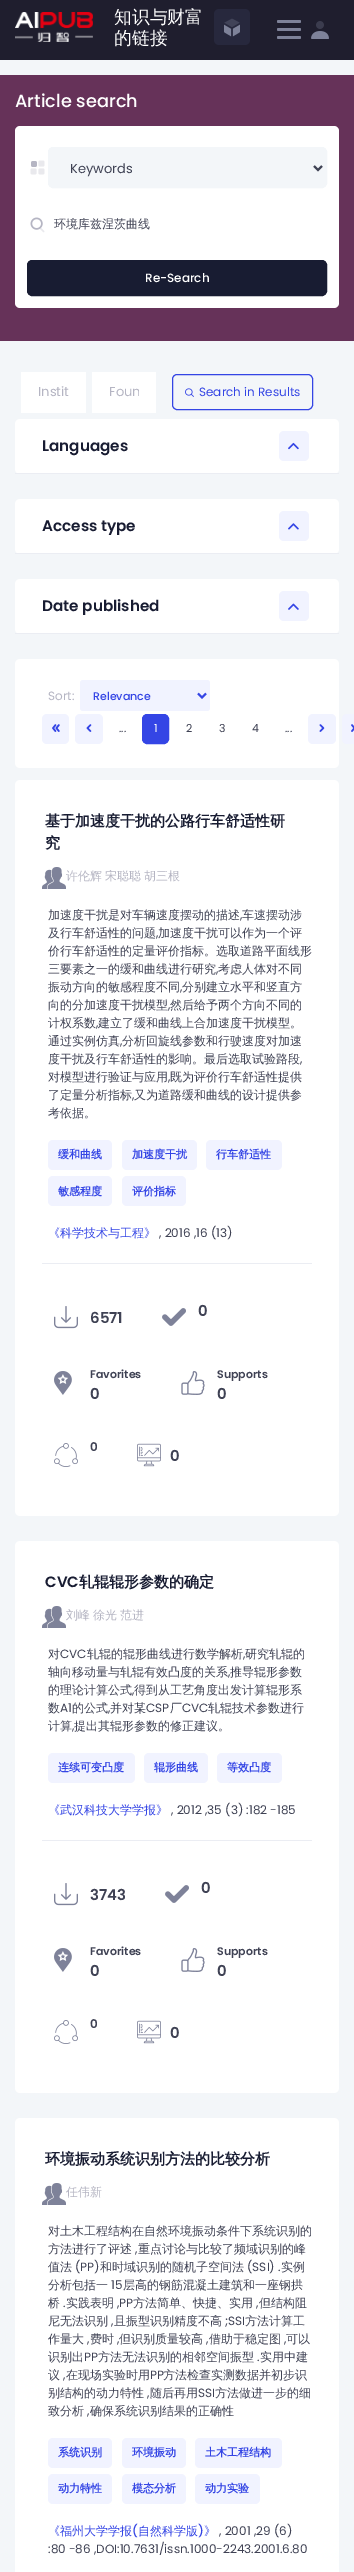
%!PS
<< /PageSize [354 2572] >> setpagedevice
/rgb { 3 { 255 div 3 1 roll } repeat setrgbcolor } def
/font { [ exch dup neg 0 0 3 -1 roll 0 0 ] selectfont } def
/text { moveto show } def
/roundrect { 5 dict begin { /r /h /w /y /x } { exch def } forall
  x r add y moveto x w add y 2 copy h add r arct x w add y h add x 1 index r arct
  x y h add x y r arct x y 2 copy exch w add exch r arct closepath end } def
/picture { 5 dict begin { /h /w /y /x /name } { exch def } forall
  gsave x y translate w h scale
  w h 8 [w 0 0 h 0 0] name (r) file false 3 colorimage grestore end } def
0 2572 translate 1 -1 scale
4 setmiterlimit
243 246 249 rgb
0 0 354 2572 rectfill
31 30 46 rgb
0 0 354 60 rectfill
(img_01.rgb) 15 12 78 30 picture
39 40 61 rgb
214 9 36 36 5 roundrect fill
(img_02.rgb) 224 18 16 19 picture
126 130 153 rgb
277 28 24 3 1.5 roundrect fill
gsave
277 18 24 24 5 roundrect clip newpath
277 20 24 3 1.5 roundrect fill
grestore
277 36 24 3 1.5 roundrect fill
(img_03.rgb) 311 21 18 18 picture
102 50 89 rgb
0 75 354 266 rectfill
255 255 255 rgb
15 126 324 182 5 roundrect fill
(img_04.rgb) 30 160 15 15 picture
243 246 249 rgb
48.5 147.5 278 40 4.5 roundrect gsave fill grestore
stroke
63 66 84 rgb
2 setlinewidth
314 166 moveto 4 4 rlineto 4 -4 rlineto stroke
(img_05.rgb) 30 217 15 16 picture
24 28 50 rgb
27.5 260.5 299 35 4.5 roundrect gsave fill grestore
1 setlinewidth
stroke
255 255 255 rgb
21 372 65 41 rectfill
92 372 64 41 rectfill
52 69 229 rgb
172.5 374.5 140 35 4.5 roundrect stroke
(img_06.rgb) 185 388 9 9 picture
255 255 255 rgb
15 419 324 55 5 roundrect fill
235 237 243 rgb
15 473 324 1 rectfill
241 243 255 rgb
279 431 30 30 5 roundrect fill
(img_07.rgb) 288 442 11 8 picture
255 255 255 rgb
15 499 324 55 5 roundrect fill
235 237 243 rgb
15 553 324 1 rectfill
241 243 255 rgb
279 511 30 30 5 roundrect fill
(img_08.rgb) 288 523 11 7 picture
255 255 255 rgb
15 579 324 55 5 roundrect fill
235 237 243 rgb
15 633 324 1 rectfill
241 243 255 rgb
279 591 30 30 5 roundrect fill
(img_09.rgb) 288 603 11 7 picture
255 255 255 rgb
15 659 324 109 5 roundrect fill
241 243 255 rgb
80 680 130 31 3 roundrect fill
52 69 229 rgb
2 setlinewidth
198 693.5 moveto 4 4 rlineto 4 -4 rlineto stroke
241 243 255 rgb
42 714 27 30 5 roundrect fill
(img_10.rgb) 52 724 8 8 picture
75 714 28 30 5 roundrect fill
(img_11.rgb) 86 724 6 8 picture
52 69 229 rgb
142.5 714.5 26 29 4.5 roundrect gsave fill grestore
1 setlinewidth
stroke
241 243 255 rgb
308 714 28 30 5 roundrect fill
(img_12.rgb) 319 724 6 8 picture
342 714 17 30 5 roundrect fill
(img_13.rgb) 351 724 3 8 picture
255 255 255 rgb
15 780 324 736 5 roundrect fill
(img_14.rgb) 42 867 24 22 picture
241 243 255 rgb
48 1140 64 30 5 roundrect fill
122 1140 75 30 5 roundrect fill
206 1140 76 30 5 roundrect fill
48 1176 64 30 5 roundrect fill
122 1176 64 30 5 roundrect fill
235 237 243 rgb
42 1263 270 1 rectfill
(img_15.rgb) 54 1306 24 23 picture
(img_16.rgb) 162 1308 24 18 picture
(img_17.rgb) 54 1371 18 24 picture
(img_18.rgb) 181 1371 24 24 picture
(img_19.rgb) 54 1443 24 24 picture
(img_20.rgb) 137 1443 24 24 picture
255 255 255 rgb
15 1541 324 552 5 roundrect fill
(img_14.rgb) 42 1606 24 22 picture
241 243 255 rgb
48 1753 87 30 5 roundrect fill
144 1753 64 30 5 roundrect fill
217 1753 65 30 5 roundrect fill
235 237 243 rgb
42 1840 270 1 rectfill
(img_15.rgb) 54 1883 24 23 picture
(img_16.rgb) 165 1885 24 18 picture
(img_17.rgb) 54 1948 18 24 picture
(img_18.rgb) 181 1948 24 24 picture
(img_19.rgb) 54 2020 24 24 picture
(img_20.rgb) 137 2020 24 24 picture
255 255 255 rgb
15 2118 324 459 5 roundrect fill
(img_14.rgb) 42 2183 24 22 picture
241 243 255 rgb
48 2438 64 30 5 roundrect fill
122 2438 64 30 5 roundrect fill
195 2438 87 30 5 roundrect fill
48 2474 64 30 5 roundrect fill
122 2474 64 30 5 roundrect fill
195 2474 65 30 5 roundrect fill
/WenQuanYiZenHei-Medium 17.75 font
255 255 255 rgb
(知识与财富) 114 23 text
(的链接) 114 44 text
/Poppins-Medium 17.75 font
(Article search) 15 107 text
/Poppins-Regular 13 font
63 66 84 rgb
(Keywords) 70 173 text
/WenQuanYiZenHei-Medium 12 font
(环境库兹涅茨曲线) 54 228 text
/Poppins-Medium 12 font
255 255 255 rgb
(Re-Search) 145 282 text
/Poppins-Regular 13 font
181 181 195 rgb
(Instit) 38 396 text
gsave
109 382 30 20 rectclip
(Foun) 109 396 text
grestore
/Poppins-Regular 12 font
52 69 229 rgb
(Search in Results) 199 396 text
/Poppins-SemiBold 15.25 font
24 28 50 rgb
(Languages) 42 451 text
(Access type) 42 531 text
(Date published) 42 611 text
/Poppins-Regular 12 font
181 181 195 rgb
(Sort:) 48 700 text
/Poppins-Medium 11 font
52 69 229 rgb
(Relevance) 93 700 text
/Poppins-Regular 11 font
63 66 84 rgb
(...) 119 732 text
255 255 255 rgb
(1) 154 732 text
63 66 84 rgb
(2) 186 732 text
(3) 219 732 text
(4) 252 732 text
(...) 285 732 text
/WenQuanYiZenHei-Bold 15 font
24 28 50 rgb
(基于加速度干扰的公路行车舒适性研) 45 826 text
(究) 45 848 text
/WenQuanYiZenHei-Medium 12 font
181 181 195 rgb
(许伦辉) 66 880 text
(宋聪聪) 105 880 text
(胡三根) 144 880 text
63 66 84 rgb
(加速度干扰是对车辆速度摆动的描述) 48 919 text
/Poppins-Regular 12 font
(,) 240 919 text
/WenQuanYiZenHei-Medium 12 font
(车速摆动涉) 242 919 text
(及行车舒适性的问题) 48 937 text
/Poppins-Regular 12 font
(,) 156 937 text
/WenQuanYiZenHei-Medium 12 font
(加速度干扰可以作为一个评) 158 937 text
(价行车舒适性的定量评价指标。选取道路平面线形) 48 955 text
(三要素之一的缓和曲线进行研究) 48 973 text
/Poppins-Regular 12 font
(,) 216 973 text
/WenQuanYiZenHei-Medium 12 font
(考虑人体对不同) 218 973 text
(振动方向的敏感程度不同) 48 991 text
/Poppins-Regular 12 font
(,) 180 991 text
/WenQuanYiZenHei-Medium 12 font
(分别建立水平和竖直方) 182 991 text
(向的分加速度干扰模型) 48 1009 text
/Poppins-Regular 12 font
(,) 168 1009 text
/WenQuanYiZenHei-Medium 12 font
(然后给予两个方向不同的) 170 1009 text
(计权系数) 48 1027 text
/Poppins-Regular 12 font
(,) 96 1027 text
/WenQuanYiZenHei-Medium 12 font
(建立了缓和曲线上合加速度干扰模型。) 98 1027 text
(通过实例仿真) 48 1045 text
/Poppins-Regular 12 font
(,) 120 1045 text
/WenQuanYiZenHei-Medium 12 font
(分析回旋线参数和行驶速度对加速) 122 1045 text
(度干扰及行车舒适性的影响。最后选取试验路段) 48 1063 text
/Poppins-Regular 12 font
(,) 300 1063 text
/WenQuanYiZenHei-Medium 12 font
(对模型进行验证与应用) 48 1081 text
/Poppins-Regular 12 font
(,) 168 1081 text
/WenQuanYiZenHei-Medium 12 font
(既为评价行车舒适性提供) 170 1081 text
(了定量分析指标) 48 1099 text
/Poppins-Regular 12 font
(,) 132 1099 text
/WenQuanYiZenHei-Medium 12 font
(又为道路缓和曲线的设计提供参) 134 1099 text
(考依据。) 48 1117 text
/WenQuanYiZenHei-Bold 11 font
52 69 229 rgb
(缓和曲线) 58 1158 text
(加速度干扰) 132 1158 text
(行车舒适性) 216 1158 text
(敏感程度) 58 1195 text
(评价指标) 132 1195 text
/WenQuanYiZenHei-Medium 12 font
(《科学技术与工程》) 48 1237 text
/Poppins-Regular 12 font
63 66 84 rgb
(, 2016 ,16 \(13\)) 159 1237 text
/Poppins-SemiBold 15 font
(6571) 90 1323 text
(0) 198 1316 text
/Poppins-SemiBold 11 font
(Favorites) 90 1378 text
/Poppins-SemiBold 15 font
(0) 90 1399 text
/Poppins-SemiBold 11 font
(Supports) 217 1378 text
/Poppins-SemiBold 15 font
(0) 217 1399 text
/Poppins-SemiBold 12 font
(0) 90 1451 text
/Poppins-SemiBold 15 font
(0) 170 1461 text
24 28 50 rgb
(CVC) 45 1587 text
/WenQuanYiZenHei-Bold 15 font
(轧辊辊形参数的确定) 79 1587 text
/WenQuanYiZenHei-Medium 12 font
181 181 195 rgb
(刘峰) 66 1619 text
(徐光) 93 1619 text
(范进) 120 1619 text
63 66 84 rgb
(对) 48 1658 text
/Poppins-Regular 12 font
(CVC) 60 1658 text
/WenQuanYiZenHei-Medium 12 font
(轧辊的辊形曲线进行数学解析) 87 1658 text
/Poppins-Regular 12 font
(,) 243 1658 text
/WenQuanYiZenHei-Medium 12 font
(研究轧辊的) 245 1658 text
(轴向移动量与轧辊有效凸度的关系) 48 1676 text
/Poppins-Regular 12 font
(,) 228 1676 text
/WenQuanYiZenHei-Medium 12 font
(推导辊形参数) 230 1676 text
(的理论计算公式) 48 1694 text
/Poppins-Regular 12 font
(,) 132 1694 text
/WenQuanYiZenHei-Medium 12 font
(得到从工艺角度出发计算辊形系) 134 1694 text
(数) 48 1712 text
/Poppins-Regular 12 font
(A1) 60 1712 text
/WenQuanYiZenHei-Medium 12 font
(的公式) 72 1712 text
/Poppins-Regular 12 font
(,) 108 1712 text
/WenQuanYiZenHei-Medium 12 font
(并对某) 110 1712 text
/Poppins-Regular 12 font
(CSP) 146 1712 text
/WenQuanYiZenHei-Medium 12 font
(厂) 170 1712 text
/Poppins-Regular 12 font
(CVC) 182 1712 text
/WenQuanYiZenHei-Medium 12 font
(轧辊技术参数进行) 208 1712 text
(计算) 48 1730 text
/Poppins-Regular 12 font
(,) 72 1730 text
/WenQuanYiZenHei-Medium 12 font
(提出其辊形参数的修正建议。) 74 1730 text
/WenQuanYiZenHei-Bold 11 font
52 69 229 rgb
(连续可变凸度) 58 1771 text
(辊形曲线) 154 1771 text
(等效凸度) 227 1771 text
/WenQuanYiZenHei-Medium 12 font
(《武汉科技大学学报》) 48 1814 text
/Poppins-Regular 12 font
63 66 84 rgb
(, 2012 ,35 \(3\) :182 -185) 171 1814 text
/Poppins-SemiBold 15 font
(3743) 90 1900 text
(0) 201 1893 text
/Poppins-SemiBold 11 font
(Favorites) 90 1955 text
/Poppins-SemiBold 15 font
(0) 90 1976 text
/Poppins-SemiBold 11 font
(Supports) 217 1955 text
/Poppins-SemiBold 15 font
(0) 217 1976 text
/Poppins-SemiBold 12 font
(0) 90 2028 text
/Poppins-SemiBold 15 font
(0) 170 2038 text
/WenQuanYiZenHei-Bold 15 font
24 28 50 rgb
(环境振动系统识别方法的比较分析) 45 2164 text
/WenQuanYiZenHei-Medium 12 font
181 181 195 rgb
(任伟新) 66 2196 text
63 66 84 rgb
(对土木工程结构在自然环境振动条件下系统识别的) 48 2235 text
(方法进行了评述) 48 2253 text
/Poppins-Regular 12 font
(,) 135 2253 text
/WenQuanYiZenHei-Medium 12 font
(重点讨论与比较了频域识别的峰) 138 2253 text
(值法) 48 2271 text
/Poppins-Regular 12 font
(\(PP\)) 75 2271 text
/WenQuanYiZenHei-Medium 12 font
(和时域识别的随机子空间法) 100 2271 text
/Poppins-Regular 12 font
(\(SSI\) .) 247 2271 text
/WenQuanYiZenHei-Medium 12 font
(实例) 281 2271 text
(分析包括一) 48 2289 text
/Poppins-Regular 12 font
(15) 111 2289 text
/WenQuanYiZenHei-Medium 12 font
(层高的钢筋混凝土建筑和一座钢拱) 123 2289 text
(桥) 48 2307 text
/Poppins-Regular 12 font
(.) 63 2307 text
/WenQuanYiZenHei-Medium 12 font
(实践表明) 66 2307 text
/Poppins-Regular 12 font
(,PP) 117 2307 text
/WenQuanYiZenHei-Medium 12 font
(方法简单、快捷、实用) 133 2307 text
/Poppins-Regular 12 font
(,) 256 2307 text
/WenQuanYiZenHei-Medium 12 font
(但结构阻) 259 2307 text
(尼无法识别) 48 2325 text
/Poppins-Regular 12 font
(,) 111 2325 text
/WenQuanYiZenHei-Medium 12 font
(且振型识别精度不高) 114 2325 text
/Poppins-Regular 12 font
(;SSI) 225 2325 text
/WenQuanYiZenHei-Medium 12 font
(方法计算工) 245 2325 text
(作量大) 48 2343 text
/Poppins-Regular 12 font
(,) 87 2343 text
/WenQuanYiZenHei-Medium 12 font
(费时) 90 2343 text
/Poppins-Regular 12 font
(,) 117 2343 text
/WenQuanYiZenHei-Medium 12 font
(但识别质量较高) 119 2343 text
/Poppins-Regular 12 font
(,) 206 2343 text
/WenQuanYiZenHei-Medium 12 font
(借助于稳定图) 209 2343 text
/Poppins-Regular 12 font
(,) 284 2343 text
/WenQuanYiZenHei-Medium 12 font
(可以) 286 2343 text
(识别出) 48 2361 text
/Poppins-Regular 12 font
(PP) 84 2361 text
/WenQuanYiZenHei-Medium 12 font
(方法无法识别的相邻空间振型) 98 2361 text
/Poppins-Regular 12 font
(.) 257 2361 text
/WenQuanYiZenHei-Medium 12 font
(实用中建) 260 2361 text
(议) 48 2379 text
/Poppins-Regular 12 font
(,) 63 2379 text
/WenQuanYiZenHei-Medium 12 font
(在现场实验时用) 66 2379 text
/Poppins-Regular 12 font
(PP) 150 2379 text
/WenQuanYiZenHei-Medium 12 font
(方法检查实测数据并初步识) 163 2379 text
(别结构的动力特性) 48 2397 text
/Poppins-Regular 12 font
(,) 147 2397 text
/WenQuanYiZenHei-Medium 12 font
(随后再用) 150 2397 text
/Poppins-Regular 12 font
(SSI) 198 2397 text
/WenQuanYiZenHei-Medium 12 font
(方法做进一步的细) 215 2397 text
(致分析) 48 2415 text
/Poppins-Regular 12 font
(,) 87 2415 text
/WenQuanYiZenHei-Medium 12 font
(确保系统识别结果的正确性) 90 2415 text
/WenQuanYiZenHei-Bold 11 font
52 69 229 rgb
(系统识别) 58 2456 text
(环境振动) 132 2456 text
(土木工程结构) 205 2456 text
(动力特性) 58 2492 text
(模态分析) 132 2492 text
(动力实验) 205 2492 text
/WenQuanYiZenHei-Medium 12 font
(《福州大学学报) 48 2535 text
/Poppins-Medium 12 font
(\() 132 2535 text
/WenQuanYiZenHei-Medium 12 font
(自然科学版) 138 2535 text
/Poppins-Medium 12 font
(\)) 198 2535 text
/WenQuanYiZenHei-Medium 12 font
(》) 204 2535 text
/Poppins-Regular 12 font
63 66 84 rgb
(, 2001 ,29 \(6\)) 219 2535 text
(:80 -86 ,DOI:10.7631/issn.1000-2243.2001.6.80) 48 2553 text
showpage
